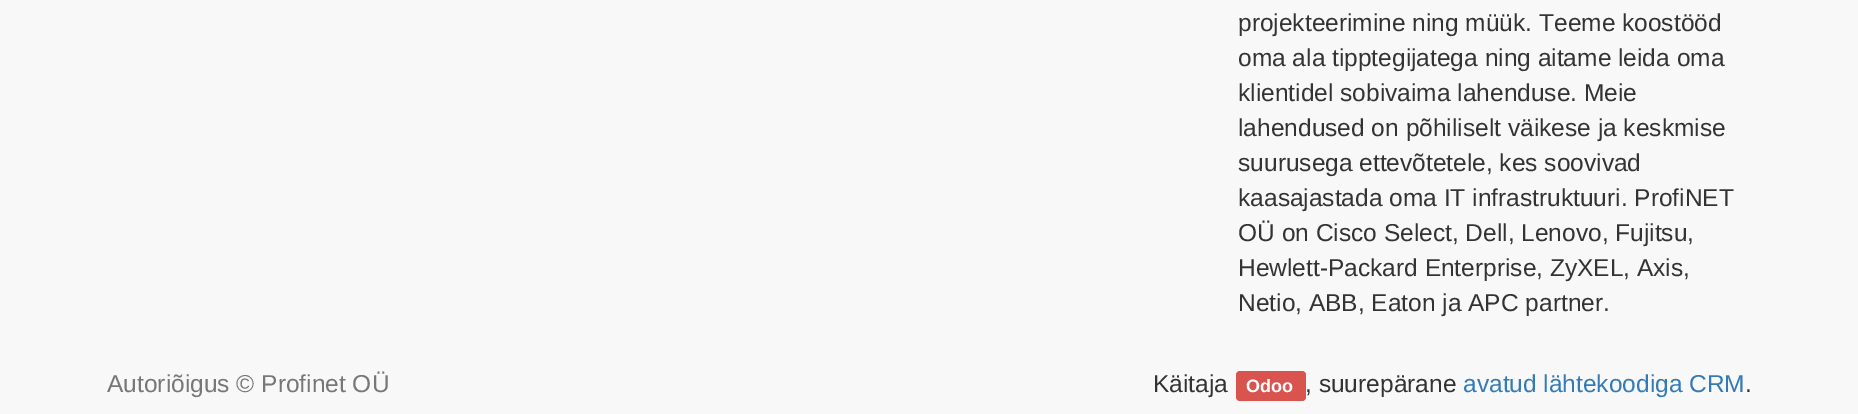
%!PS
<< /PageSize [1858 414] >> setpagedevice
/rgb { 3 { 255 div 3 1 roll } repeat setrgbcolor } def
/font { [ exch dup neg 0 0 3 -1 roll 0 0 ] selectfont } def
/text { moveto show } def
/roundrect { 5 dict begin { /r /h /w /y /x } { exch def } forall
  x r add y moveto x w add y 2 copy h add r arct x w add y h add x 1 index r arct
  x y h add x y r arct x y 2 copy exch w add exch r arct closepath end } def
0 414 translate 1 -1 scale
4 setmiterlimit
248 248 248 rgb
0 0 1858 414 rectfill
217 83 79 rgb
1236 371 70 30 4 roundrect fill
/LiberationSans-Regular 24.5 font
51 51 51 rgb
(projekteerimine ning müük. Teeme koostööd) 1238 31 text
(oma ala tipptegijatega ning aitame leida oma) 1238 66 text
(klientidel sobivaima lahenduse. Meie) 1238 101 text
(lahendused on põhiliselt väikese ja keskmise) 1238 136 text
(suurusega ettevõtetele, kes soovivad) 1238 171 text
(kaasajastada oma IT infrastruktuuri. ProfiNET) 1238 206 text
(OÜ on Cisco Select, Dell, Lenovo, Fujitsu,) 1238 241 text
(Hewlett-Packard Enterprise, ZyXEL, Axis,) 1238 276 text
(Netio, ABB, Eaton ja APC partner.) 1238 311 text
119 119 119 rgb
(Autoriõigus © Profinet OÜ) 107 392 text
51 51 51 rgb
(Käitaja) 1153 392 text
/LiberationSans-Bold 18 font
255 255 255 rgb
(Odoo) 1246 392 text
/LiberationSans-Regular 24.5 font
51 51 51 rgb
(, suurepärane) 1305 392 text
51 122 183 rgb
(avatud lähtekoodiga CRM) 1463 392 text
51 51 51 rgb
(.) 1745 392 text
showpage
